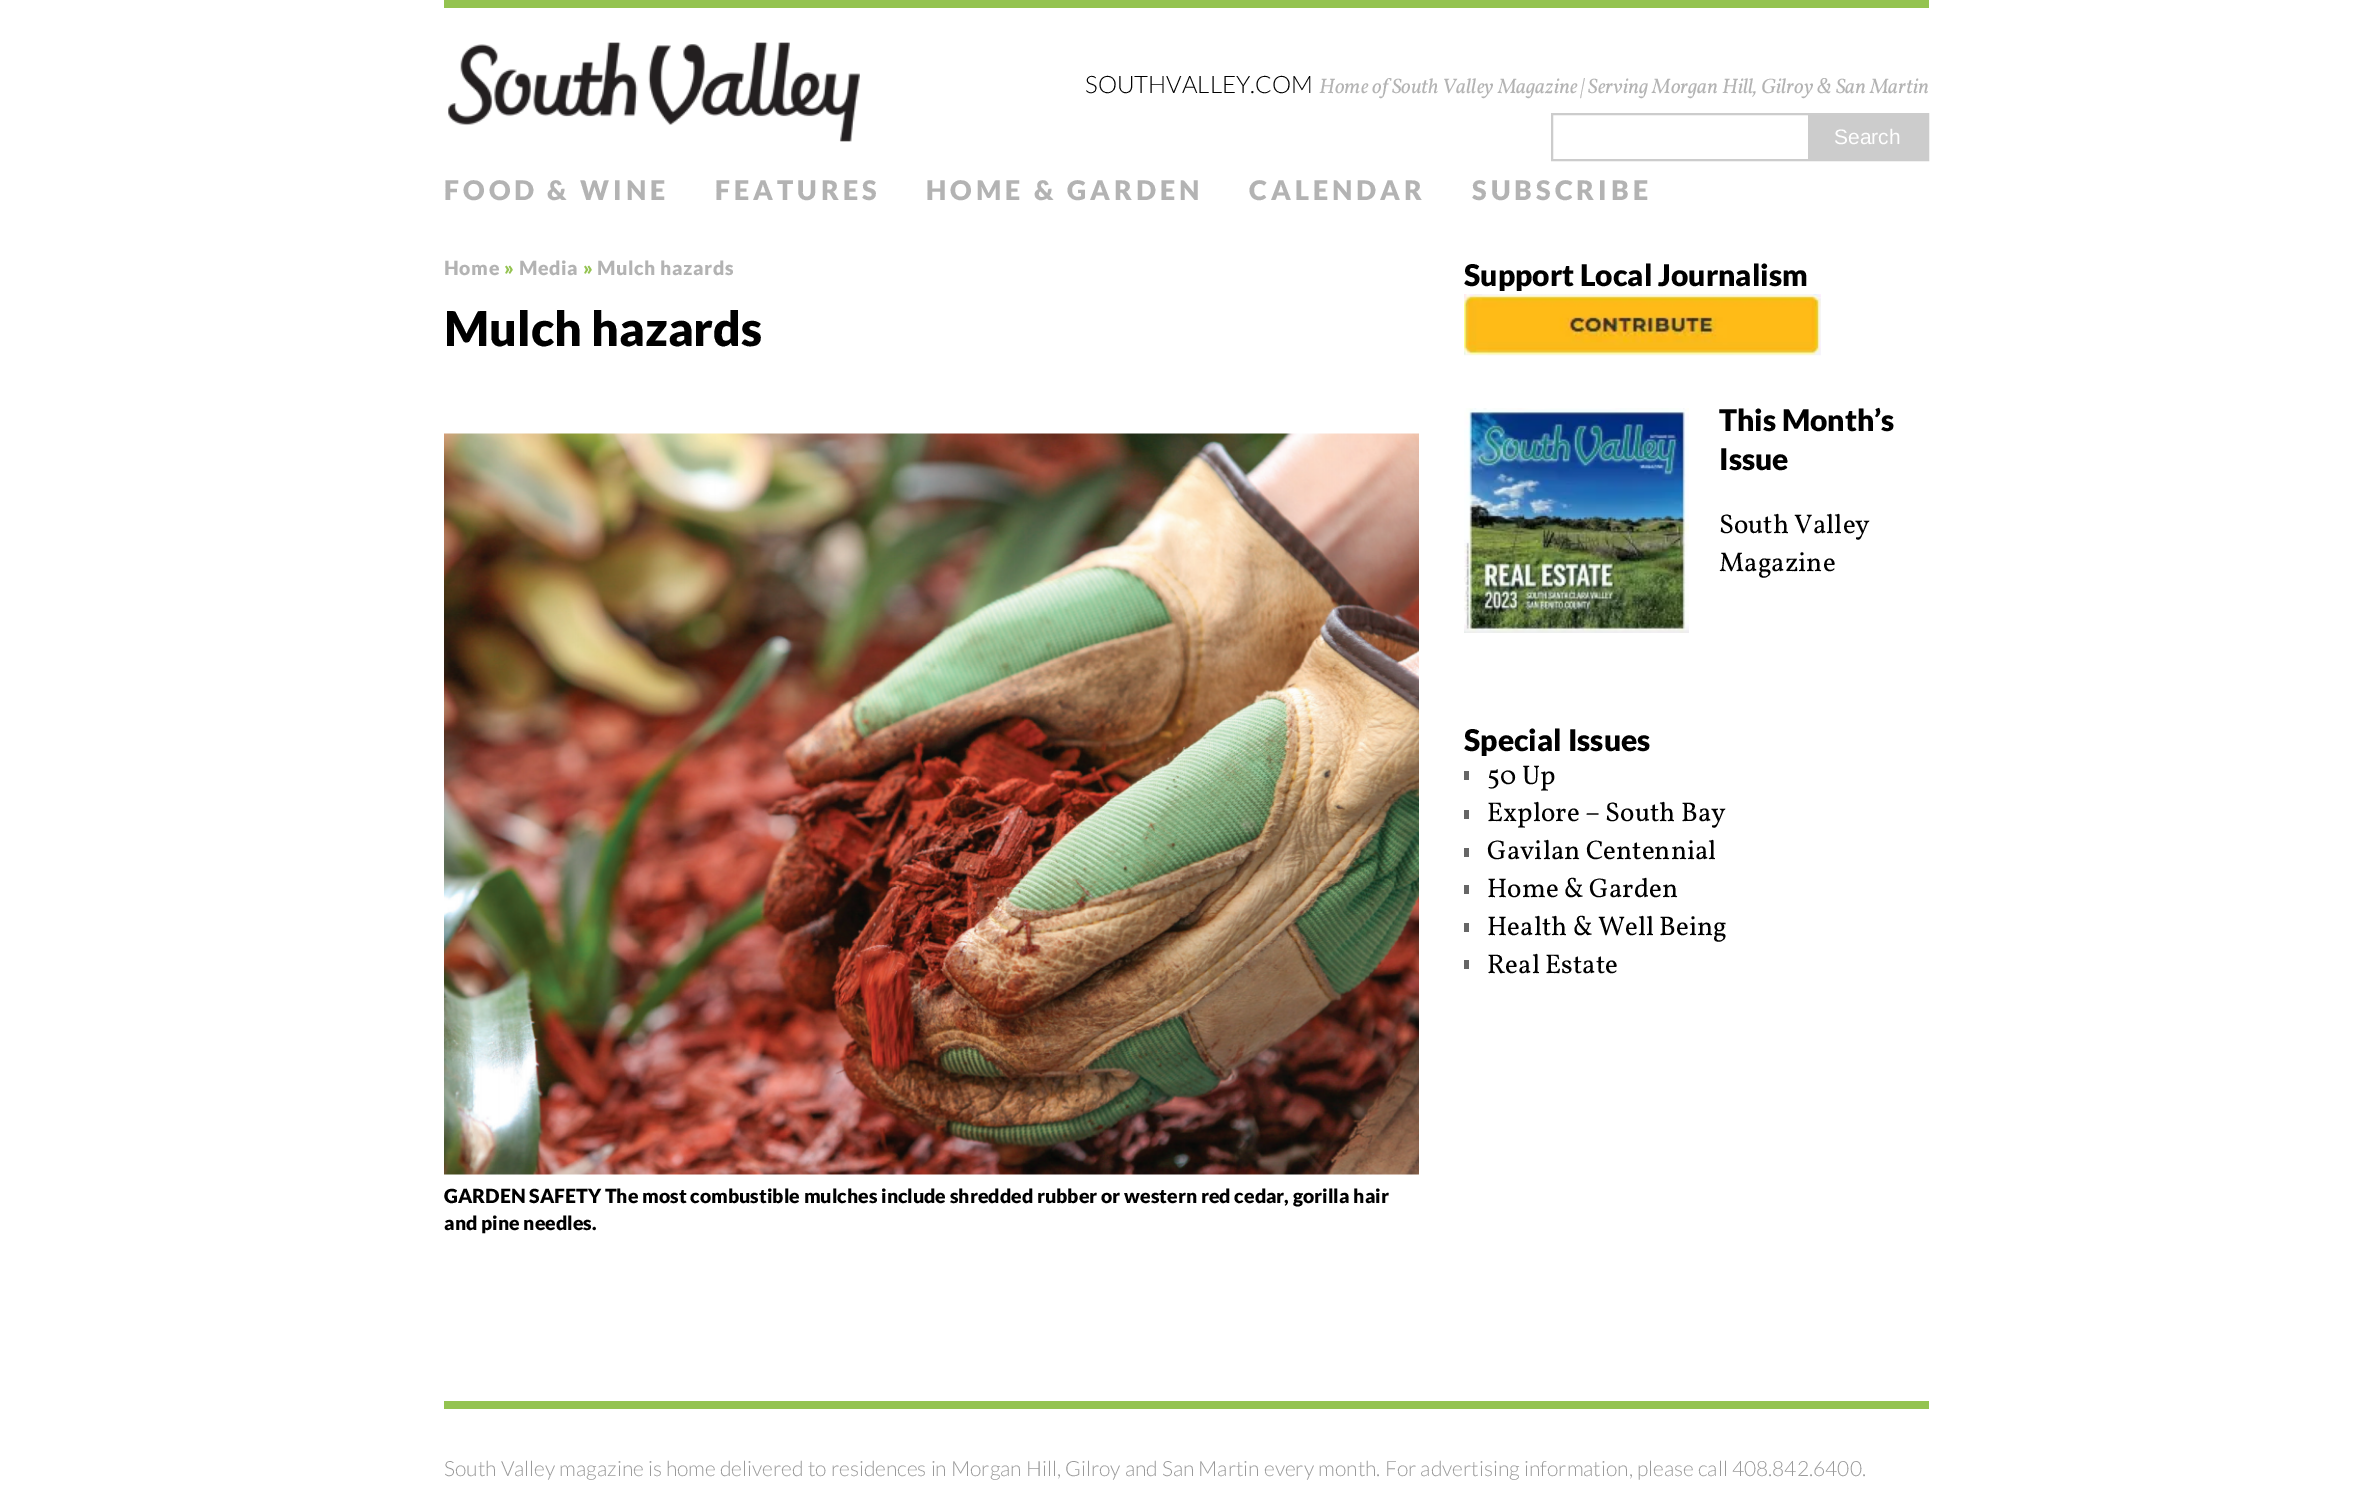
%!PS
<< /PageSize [2373 1490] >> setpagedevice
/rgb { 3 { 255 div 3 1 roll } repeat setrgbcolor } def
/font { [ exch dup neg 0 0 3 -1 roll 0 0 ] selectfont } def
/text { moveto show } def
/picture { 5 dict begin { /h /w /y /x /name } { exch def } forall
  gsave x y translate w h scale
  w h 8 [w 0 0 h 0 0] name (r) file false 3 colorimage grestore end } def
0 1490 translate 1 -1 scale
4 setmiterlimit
255 255 255 rgb
0 0 2373 1490 rectfill
148 195 80 rgb
444 0 1485 8 rectfill
(img_01.rgb) 448 42 412 100 picture
204 204 204 rgb
2 setlinewidth
1552 114 376 46 rectstroke
1808 115 119 44 rectfill
(img_02.rgb) 444 433 975 742 picture
(img_03.rgb) 1464 294 357 62 picture
(img_04.rgb) 1464 408 225 225 picture
102 102 102 rgb
1464 771 5 9 rectfill
1464 810 5 9 rectfill
1464 848 5 9 rectfill
1464 885 5 9 rectfill
1464 923 5 9 rectfill
1464 960 5 9 rectfill
148 195 80 rgb
444 1401 1485 8 rectfill
/Lato-Light 24 font
0 0 0 rgb
(SOUTHVALLEY.COM) 1085 93 text
/Vollkorn-Italic 21 font
179 179 179 rgb
(Home of South Valley Magazine | Serving Morgan Hill, Gilroy & San Martin) 1319 93 text
/LiberationSans-Regular 21 font
255 255 255 rgb
(Search) 1834 144 text
/Lato-Black 27 font
179 179 179 rgb
444 200 moveto 4 0 (FOOD & WINE) ashow
715 200 moveto 4 0 (FEATURES) ashow
926 200 moveto 4 0 (HOME & GARDEN) ashow
1249 200 moveto 4 0 (CALENDAR) ashow
1472 200 moveto 4 0 (SUBSCRIBE) ashow
/Lato-Black 19.5 font
444 275 moveto 0.6 0 (Home) ashow
148 195 80 rgb
504 275 moveto 0.6 0 (») ashow
179 179 179 rgb
519 275 moveto 0.6 0 (Media) ashow
148 195 80 rgb
583 275 moveto 0.6 0 (») ashow
179 179 179 rgb
597 275 moveto 0.6 0 (Mulch hazards) ashow
/Lato-Black 48 font
0 0 0 rgb
(Mulch hazards) 444 346 text
/Lato-Black 19.5 font
(GARDEN SAFETY The most combustible mulches include shredded rubber or western red cedar, gorilla hair) 444 1203 text
(and pine needles.) 444 1230 text
/Lato-Black 30 font
(Support Local Journalism) 1464 286 text
(This Month’s) 1719 431 text
(Issue) 1719 470 text
/Vollkorn-Regular 27 font
(South Valley) 1719 533 text
(Magazine) 1719 571 text
/Lato-Black 30 font
(Special Issues) 1464 751 text
/Vollkorn-Regular 27 font
(50 Up) 1487 784 text
(Explore – South Bay) 1487 821 text
(Gavilan Centennial) 1487 859 text
(Home & Garden) 1487 897 text
(Health & Well Being) 1487 935 text
(Real Estate) 1487 973 text
/Lato-Light 21 font
153 153 153 rgb
(South Valley magazine is home delivered to residences in Morgan Hill, Gilroy and San Martin every month. For advertising information, please call 408.842.6400.) 444 1476 text
showpage
